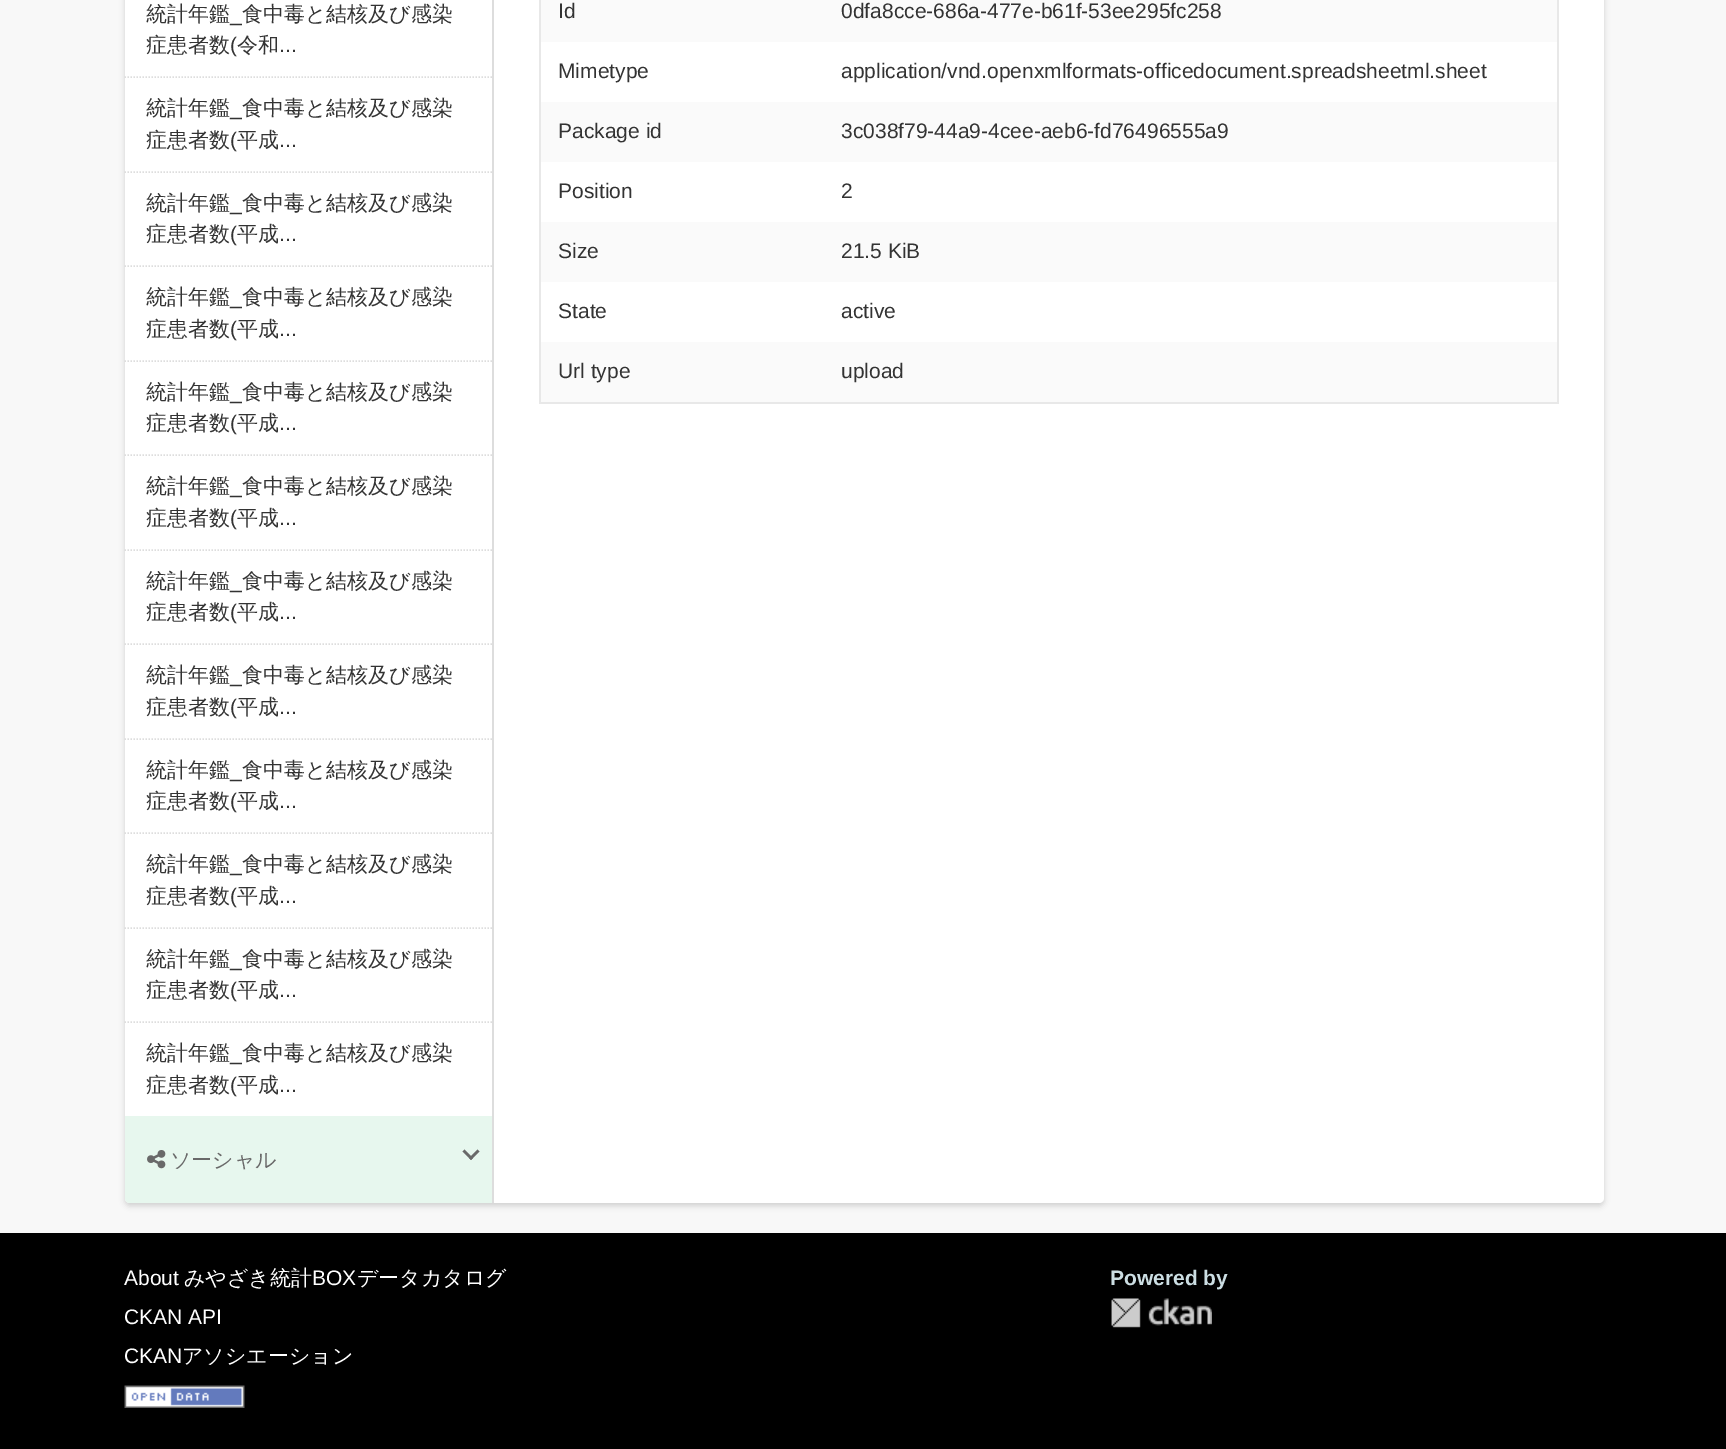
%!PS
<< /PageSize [1726 1449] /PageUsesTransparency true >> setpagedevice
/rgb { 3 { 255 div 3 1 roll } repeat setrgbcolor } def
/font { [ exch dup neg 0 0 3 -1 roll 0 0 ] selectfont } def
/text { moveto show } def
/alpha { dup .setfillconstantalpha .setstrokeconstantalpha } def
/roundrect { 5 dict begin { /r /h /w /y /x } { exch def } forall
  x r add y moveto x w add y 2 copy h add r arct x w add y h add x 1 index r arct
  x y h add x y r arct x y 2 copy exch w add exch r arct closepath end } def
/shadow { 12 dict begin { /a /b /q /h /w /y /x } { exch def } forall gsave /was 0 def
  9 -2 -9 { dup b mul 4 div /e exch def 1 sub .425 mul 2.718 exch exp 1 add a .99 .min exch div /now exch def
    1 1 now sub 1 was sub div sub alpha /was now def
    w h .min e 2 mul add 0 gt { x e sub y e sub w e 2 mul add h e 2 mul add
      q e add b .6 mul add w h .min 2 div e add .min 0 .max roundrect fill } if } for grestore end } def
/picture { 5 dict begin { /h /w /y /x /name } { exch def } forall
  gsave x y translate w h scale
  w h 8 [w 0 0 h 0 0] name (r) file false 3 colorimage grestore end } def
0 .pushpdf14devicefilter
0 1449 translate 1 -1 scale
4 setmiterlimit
0 0 0 rgb
0 0 1726 1449 rectfill
248 248 248 rgb
0 0 1726 1233 rectfill
0 0 0 rgb
125 -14 1479 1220 5 3 0.16 shadow
255 255 255 rgb
125 -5 1479 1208 5 roundrect fill
221 221 221 rgb
1.5 setlinewidth
[1.5 1.5] 0 setdash
124.5 77 moveto 367.5 0 rlineto stroke
124.5 172 moveto 367.5 0 rlineto stroke
124.5 266 moveto 367.5 0 rlineto stroke
124.5 361 moveto 367.5 0 rlineto stroke
124.5 455 moveto 367.5 0 rlineto stroke
124.5 550 moveto 367.5 0 rlineto stroke
124.5 644 moveto 367.5 0 rlineto stroke
124.5 739 moveto 367.5 0 rlineto stroke
124.5 833 moveto 367.5 0 rlineto stroke
124.5 928 moveto 367.5 0 rlineto stroke
124.5 1022 moveto 367.5 0 rlineto stroke
231 247 238 rgb
125 1116 moveto 367 0 rlineto 0 87 rlineto -362 0 rlineto -3 0 -5 -2 -5 -5 rcurveto closepath fill
(img_01.rgb) 147 1150 19 19 picture
105 105 105 rgb
477.5 1149.5 moveto 2 2 rlineto -8.5 8.5 rlineto -2 -2 rlineto closepath fill
464.5 1149.5 moveto 8.5 8.5 rlineto -2 2 rlineto -8.5 -8.5 rlineto closepath fill
221 221 221 rgb
492 0 2 1203 rectfill
232 232 232 rgb
1557 0 2 404 rectfill
539 402 1020 2 rectfill
539 0 2 404 rectfill
250 250 250 rgb
541 0 1016 42 rectfill
541 102 1016 60 rectfill
541 222 1016 60 rectfill
541 342 1016 60 rectfill
(img_02.rgb) 124 1385 121 23 picture
(img_03.rgb) 1111 1298 101 30 picture
/WenQuanYiZenHei-Medium 21 font
51 51 51 rgb
(統計年鑑) 146 21 text
/LiberationSans-Regular 21 font
(_) 230 21 text
/WenQuanYiZenHei-Medium 21 font
(食中毒と結核及び感染) 242 21 text
(症患者数) 146 52 text
/LiberationSans-Regular 21 font
(\() 230 52 text
/WenQuanYiZenHei-Medium 21 font
(令和) 237 52 text
/LiberationSans-Regular 21 font
(...) 279 52 text
/WenQuanYiZenHei-Medium 21 font
(統計年鑑) 146 115 text
/LiberationSans-Regular 21 font
(_) 230 115 text
/WenQuanYiZenHei-Medium 21 font
(食中毒と結核及び感染) 242 115 text
(症患者数) 146 147 text
/LiberationSans-Regular 21 font
(\() 230 147 text
/WenQuanYiZenHei-Medium 21 font
(平成) 237 147 text
/LiberationSans-Regular 21 font
(...) 279 147 text
/WenQuanYiZenHei-Medium 21 font
(統計年鑑) 146 210 text
/LiberationSans-Regular 21 font
(_) 230 210 text
/WenQuanYiZenHei-Medium 21 font
(食中毒と結核及び感染) 242 210 text
(症患者数) 146 241 text
/LiberationSans-Regular 21 font
(\() 230 241 text
/WenQuanYiZenHei-Medium 21 font
(平成) 237 241 text
/LiberationSans-Regular 21 font
(...) 279 241 text
/WenQuanYiZenHei-Medium 21 font
(統計年鑑) 146 304 text
/LiberationSans-Regular 21 font
(_) 230 304 text
/WenQuanYiZenHei-Medium 21 font
(食中毒と結核及び感染) 242 304 text
(症患者数) 146 336 text
/LiberationSans-Regular 21 font
(\() 230 336 text
/WenQuanYiZenHei-Medium 21 font
(平成) 237 336 text
/LiberationSans-Regular 21 font
(...) 279 336 text
/WenQuanYiZenHei-Medium 21 font
(統計年鑑) 146 399 text
/LiberationSans-Regular 21 font
(_) 230 399 text
/WenQuanYiZenHei-Medium 21 font
(食中毒と結核及び感染) 242 399 text
(症患者数) 146 430 text
/LiberationSans-Regular 21 font
(\() 230 430 text
/WenQuanYiZenHei-Medium 21 font
(平成) 237 430 text
/LiberationSans-Regular 21 font
(...) 279 430 text
/WenQuanYiZenHei-Medium 21 font
(統計年鑑) 146 493 text
/LiberationSans-Regular 21 font
(_) 230 493 text
/WenQuanYiZenHei-Medium 21 font
(食中毒と結核及び感染) 242 493 text
(症患者数) 146 525 text
/LiberationSans-Regular 21 font
(\() 230 525 text
/WenQuanYiZenHei-Medium 21 font
(平成) 237 525 text
/LiberationSans-Regular 21 font
(...) 279 525 text
/WenQuanYiZenHei-Medium 21 font
(統計年鑑) 146 588 text
/LiberationSans-Regular 21 font
(_) 230 588 text
/WenQuanYiZenHei-Medium 21 font
(食中毒と結核及び感染) 242 588 text
(症患者数) 146 619 text
/LiberationSans-Regular 21 font
(\() 230 619 text
/WenQuanYiZenHei-Medium 21 font
(平成) 237 619 text
/LiberationSans-Regular 21 font
(...) 279 619 text
/WenQuanYiZenHei-Medium 21 font
(統計年鑑) 146 682 text
/LiberationSans-Regular 21 font
(_) 230 682 text
/WenQuanYiZenHei-Medium 21 font
(食中毒と結核及び感染) 242 682 text
(症患者数) 146 714 text
/LiberationSans-Regular 21 font
(\() 230 714 text
/WenQuanYiZenHei-Medium 21 font
(平成) 237 714 text
/LiberationSans-Regular 21 font
(...) 279 714 text
/WenQuanYiZenHei-Medium 21 font
(統計年鑑) 146 777 text
/LiberationSans-Regular 21 font
(_) 230 777 text
/WenQuanYiZenHei-Medium 21 font
(食中毒と結核及び感染) 242 777 text
(症患者数) 146 808 text
/LiberationSans-Regular 21 font
(\() 230 808 text
/WenQuanYiZenHei-Medium 21 font
(平成) 237 808 text
/LiberationSans-Regular 21 font
(...) 279 808 text
/WenQuanYiZenHei-Medium 21 font
(統計年鑑) 146 871 text
/LiberationSans-Regular 21 font
(_) 230 871 text
/WenQuanYiZenHei-Medium 21 font
(食中毒と結核及び感染) 242 871 text
(症患者数) 146 903 text
/LiberationSans-Regular 21 font
(\() 230 903 text
/WenQuanYiZenHei-Medium 21 font
(平成) 237 903 text
/LiberationSans-Regular 21 font
(...) 279 903 text
/WenQuanYiZenHei-Medium 21 font
(統計年鑑) 146 966 text
/LiberationSans-Regular 21 font
(_) 230 966 text
/WenQuanYiZenHei-Medium 21 font
(食中毒と結核及び感染) 242 966 text
(症患者数) 146 997 text
/LiberationSans-Regular 21 font
(\() 230 997 text
/WenQuanYiZenHei-Medium 21 font
(平成) 237 997 text
/LiberationSans-Regular 21 font
(...) 279 997 text
/WenQuanYiZenHei-Medium 21 font
(統計年鑑) 146 1060 text
/LiberationSans-Regular 21 font
(_) 230 1060 text
/WenQuanYiZenHei-Medium 21 font
(食中毒と結核及び感染) 242 1060 text
(症患者数) 146 1092 text
/LiberationSans-Regular 21 font
(\() 230 1092 text
/WenQuanYiZenHei-Medium 21 font
(平成) 237 1092 text
/LiberationSans-Regular 21 font
(...) 279 1092 text
/WenQuanYiZenHei-Medium 21 font
105 105 105 rgb
(ソーシャル) 170 1167 text
/LiberationSans-Regular 21 font
51 51 51 rgb
(Id) 558 18 text
(0dfa8cce-686a-477e-b61f-53ee295fc258) 841 18 text
(Mimetype) 558 78 text
(application/vnd.openxmlformats-officedocument.spreadsheetml.sheet) 841 78 text
(Package id) 558 138 text
(3c038f79-44a9-4cee-aeb6-fd76496555a9) 841 138 text
(Position) 558 198 text
(2) 841 198 text
(Size) 558 258 text
(21.5 KiB) 841 258 text
(State) 558 318 text
(active) 841 318 text
(Url type) 558 378 text
(upload) 841 378 text
255 255 255 rgb
(About) 124 1285 text
/WenQuanYiZenHei-Medium 21 font
(みやざき統計) 184 1285 text
/LiberationSans-Regular 21 font
(BOX) 312 1285 text
/WenQuanYiZenHei-Medium 21 font
(データカタログ) 357 1285 text
/LiberationSans-Regular 21 font
(CKAN API) 124 1324 text
(CKAN) 124 1363 text
/WenQuanYiZenHei-Medium 21 font
(アソシエーション) 182 1363 text
/LiberationSans-Bold 21 font
204 222 227 rgb
(Powered by) 1110 1285 text
.poppdf14devicefilter showpage
